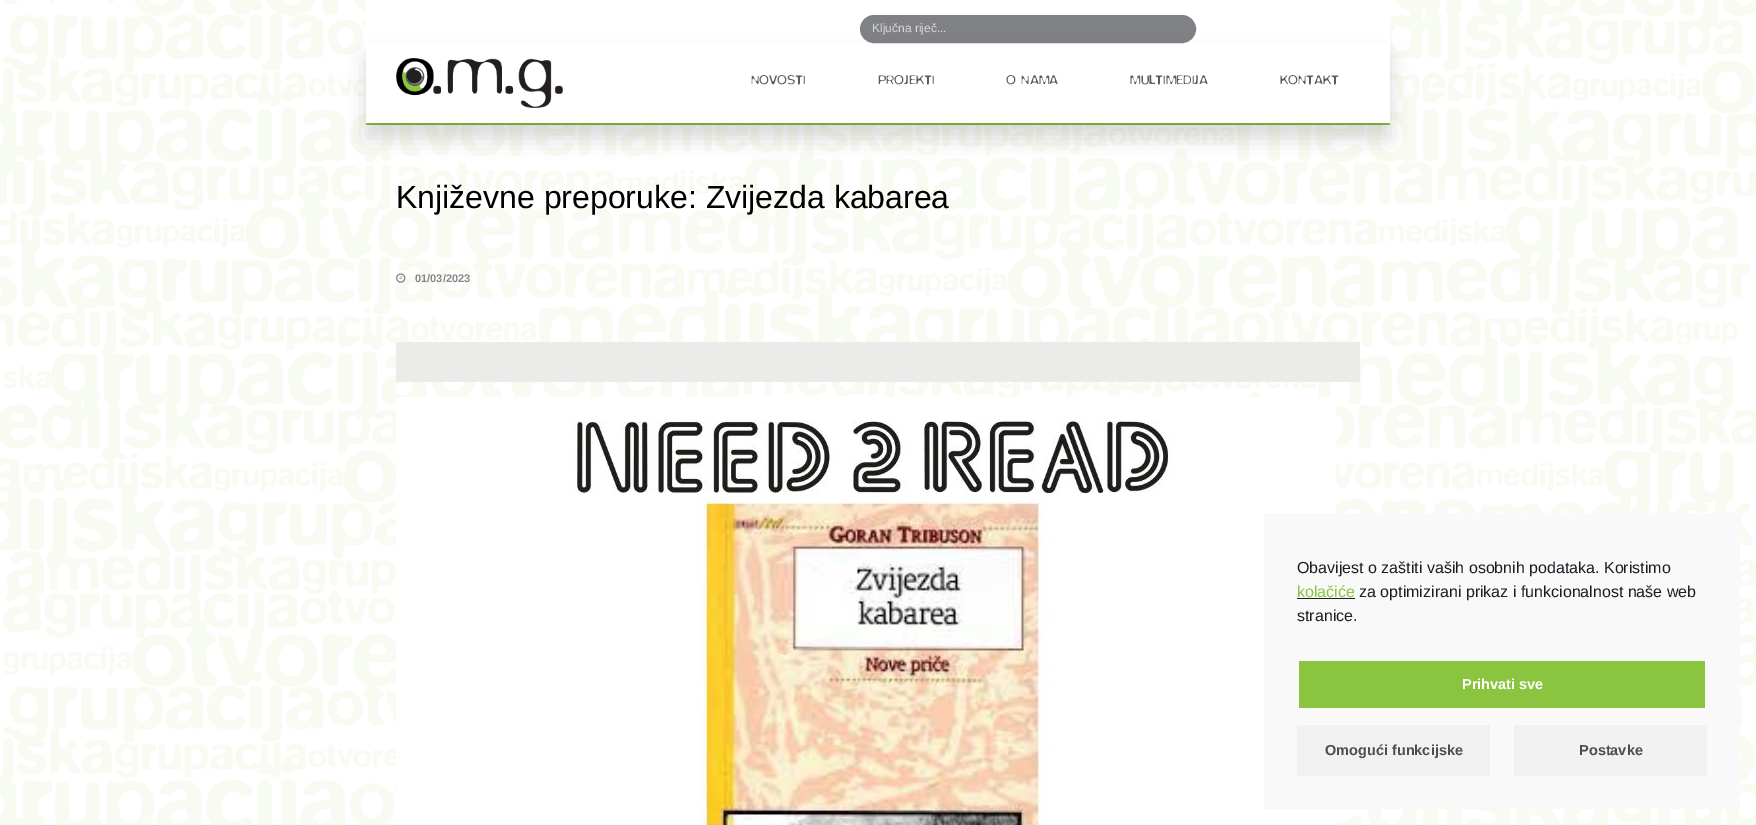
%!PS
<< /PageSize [1756 825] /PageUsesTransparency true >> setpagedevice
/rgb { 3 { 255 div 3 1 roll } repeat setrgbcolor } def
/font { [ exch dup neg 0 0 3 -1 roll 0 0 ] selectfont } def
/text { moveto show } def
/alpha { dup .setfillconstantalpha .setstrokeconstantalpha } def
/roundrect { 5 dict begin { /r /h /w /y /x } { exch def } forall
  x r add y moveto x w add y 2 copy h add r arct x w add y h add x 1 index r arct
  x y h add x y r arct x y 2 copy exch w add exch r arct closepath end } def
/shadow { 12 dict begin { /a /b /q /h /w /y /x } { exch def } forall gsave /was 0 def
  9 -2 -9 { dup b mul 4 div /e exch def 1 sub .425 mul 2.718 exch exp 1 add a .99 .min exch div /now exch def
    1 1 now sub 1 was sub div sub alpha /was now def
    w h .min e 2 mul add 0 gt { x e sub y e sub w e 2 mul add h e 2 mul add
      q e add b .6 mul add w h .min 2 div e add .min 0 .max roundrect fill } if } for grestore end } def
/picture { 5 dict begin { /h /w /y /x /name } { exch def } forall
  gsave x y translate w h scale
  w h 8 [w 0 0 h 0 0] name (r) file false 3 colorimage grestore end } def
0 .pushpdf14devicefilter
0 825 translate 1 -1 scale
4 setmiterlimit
255 255 255 rgb
0 0 1756 825 rectfill
(img_01.rgb) 0 0 1756 825 picture
366 0 1024 123 rectfill
128 129 132 rgb
861 16 334 26 13 roundrect gsave fill grestore
2 setlinewidth
stroke
139 197 63 rgb
366 123 1024 2 rectfill
gsave
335 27 moveto 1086 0 rlineto 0 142 rlineto -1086 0 rlineto closepath 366 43 moveto 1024 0 rlineto 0 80 rlineto -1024 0 rlineto closepath eoclip newpath
0 0 0 rgb
366 58 1024 80 0 10 0.15 shadow
grestore
(img_02.rgb) 396 58 167 50 picture
(img_03.rgb) 396 273 10 10 picture
235 235 234 rgb
396 342 964 40 rectfill
(img_04.rgb) 396 397 940 428 picture
249 249 249 rgb
1264 513 476 296 rectfill
25 30 35 rgb
1297 598 58 1 rectfill
139 197 63 rgb
1299 661 406 47 rectfill
241 241 241 rgb
1297 725 193 51 rectfill
1514 725 193 51 rectfill
/LiberationSans-Regular 12 font
217 217 218 rgb
(Ključna riječ...) 872 32 text
/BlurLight-Light 14 font
91 91 90 rgb
(NOVOSTI) 751 84 text
(PROJEKTI) 878 84 text
(O NAMA) 1006 84 text
(MULTIMEDIJA) 1130 84 text
(KONTAKT) 1280 84 text
/LiberationSans-Regular 32 font
0 0 0 rgb
(Književne preporuke: Zvijezda kabarea) 396 208 text
/LiberationSans-Bold 11 font
135 135 135 rgb
(01/03/2023) 415 282 text
/LiberationSans-Regular 16 font
25 30 35 rgb
(Obavijest o zaštiti vaših osobnih podataka. Koristimo) 1297 573 text
139 197 63 rgb
(kolačiće) 1297 597 text
25 30 35 rgb
(za optimizirani prikaz i funkcionalnost naše web) 1359 597 text
(stranice.) 1297 621 text
/LiberationSans-Bold 14.5 font
255 255 255 rgb
(Prihvati sve) 1462 689 text
77 77 79 rgb
(Omogući funkcijske) 1325 755 text
(Postavke) 1579 755 text
.poppdf14devicefilter showpage
